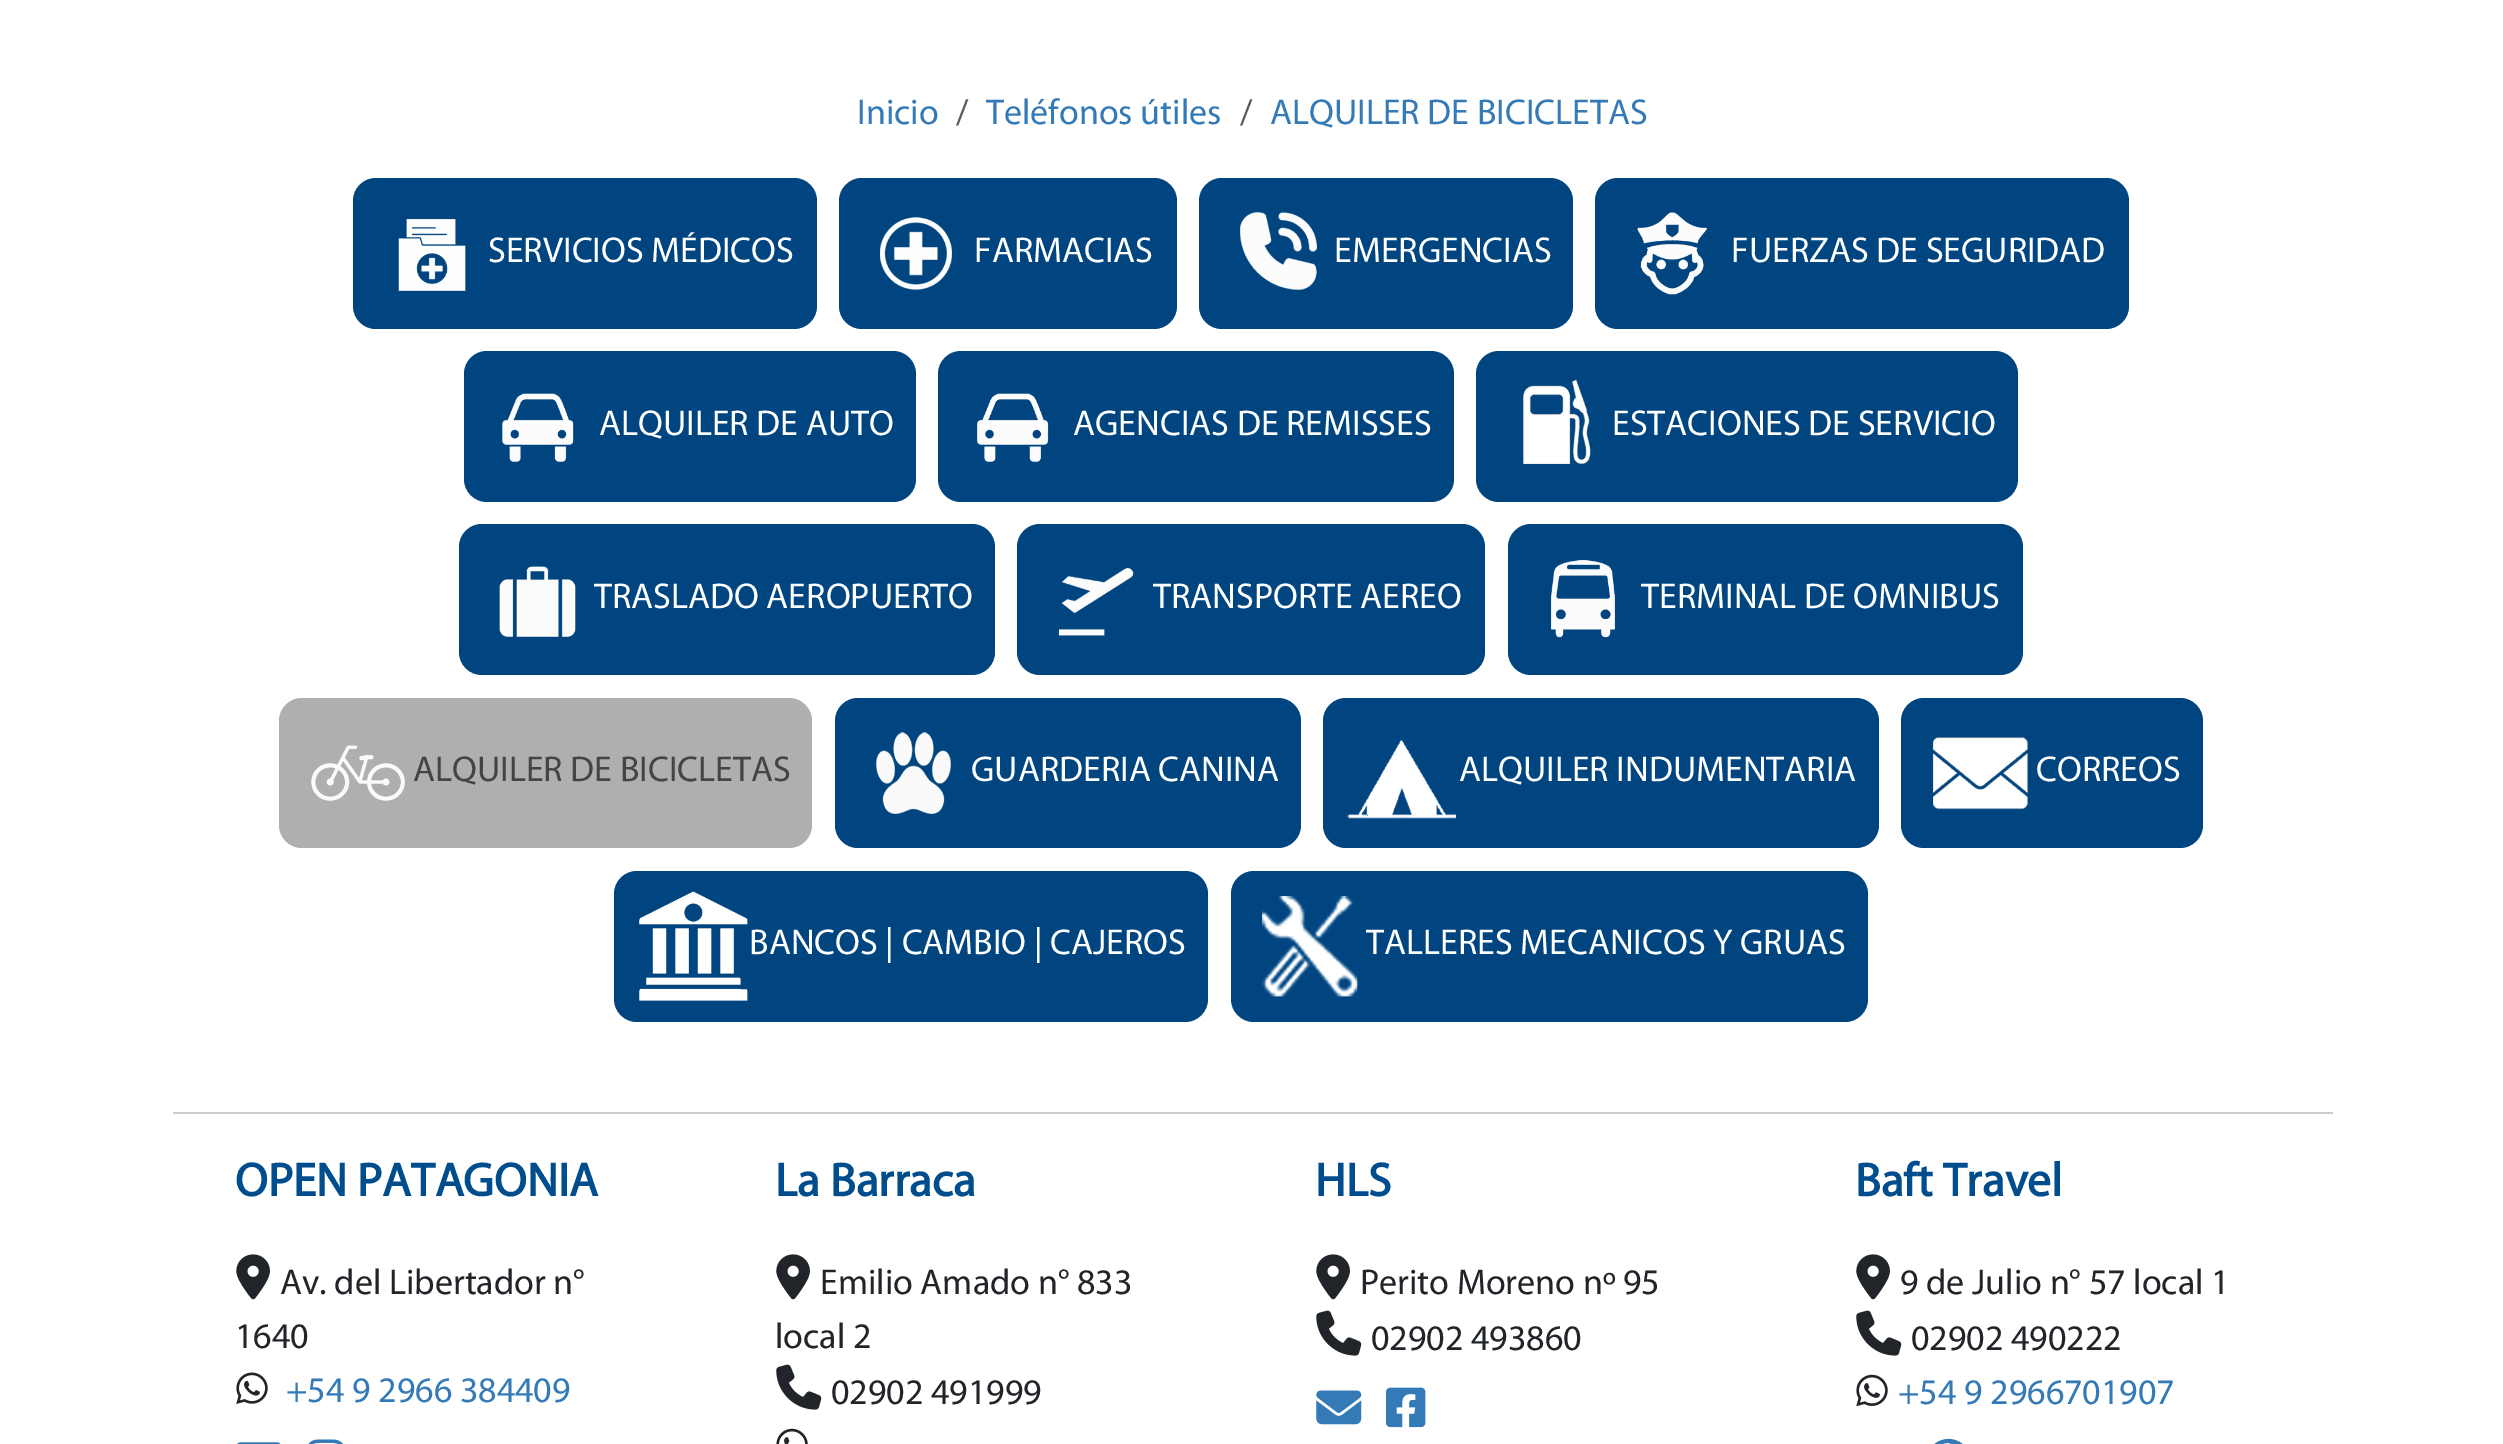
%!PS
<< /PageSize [2503 1444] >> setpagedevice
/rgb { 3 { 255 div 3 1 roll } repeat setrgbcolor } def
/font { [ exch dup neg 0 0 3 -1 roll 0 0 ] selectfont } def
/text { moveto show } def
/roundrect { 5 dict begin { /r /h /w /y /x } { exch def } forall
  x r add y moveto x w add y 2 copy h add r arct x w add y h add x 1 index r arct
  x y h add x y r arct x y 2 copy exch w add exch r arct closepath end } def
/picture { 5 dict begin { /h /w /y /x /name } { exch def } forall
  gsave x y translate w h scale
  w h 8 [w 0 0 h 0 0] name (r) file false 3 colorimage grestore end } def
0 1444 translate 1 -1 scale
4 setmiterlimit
255 255 255 rgb
0 0 2503 1444 rectfill
0 69 127 rgb
353 178 464 151 23 roundrect fill
(img_01.rgb) 398 219 68 72 picture
839 178 338 151 23 roundrect fill
(img_02.rgb) 880 217 72 73 picture
1199 178 374 151 23 roundrect fill
(img_03.rgb) 1240 212 77 78 picture
1595 178 534 151 23 roundrect fill
(img_04.rgb) 1637 212 70 83 picture
464 351 452 151 23 roundrect fill
(img_05.rgb) 502 393 72 69 picture
938 351 516 151 23 roundrect fill
(img_06.rgb) 977 393 72 69 picture
1476 351 542 151 23 roundrect fill
(img_07.rgb) 1523 379 68 85 picture
459 524 536 151 23 roundrect fill
(img_08.rgb) 499 566 77 71 picture
1017 524 468 151 23 roundrect fill
(img_09.rgb) 1058 568 76 68 picture
1508 524 515 151 23 roundrect fill
(img_10.rgb) 1551 560 64 78 picture
175 175 175 rgb
279 698 533 150 23 roundrect fill
(img_11.rgb) 311 745 94 56 picture
0 69 127 rgb
835 698 466 150 23 roundrect fill
(img_12.rgb) 876 732 75 82 picture
1323 698 556 150 23 roundrect fill
(img_13.rgb) 1347 739 109 80 picture
1901 698 302 150 23 roundrect fill
(img_14.rgb) 1933 737 95 73 picture
614 871 594 151 23 roundrect fill
(img_15.rgb) 639 891 109 110 picture
1231 871 637 151 23 roundrect fill
(img_16.rgb) 1262 896 96 101 picture
204 204 204 rgb
173 1112 2160 2 rectfill
(img_17.rgb) 236 1254 34 46 picture
(img_18.rgb) 236 1372 32 32 picture
(img_19.rgb) 237 1442 44 2 picture
(img_20.rgb) 308 1439 35 5 picture
(img_17.rgb) 776 1254 34 46 picture
(img_21.rgb) 776 1364 46 46 picture
(img_22.rgb) 776 1428 32 16 picture
(img_17.rgb) 1316 1254 34 46 picture
(img_21.rgb) 1316 1310 46 46 picture
(img_23.rgb) 1316 1390 46 35 picture
(img_24.rgb) 1386 1387 40 41 picture
(img_17.rgb) 1856 1254 34 46 picture
(img_21.rgb) 1856 1310 46 46 picture
(img_25.rgb) 1856 1374 32 33 picture
(img_26.rgb) 1934 1438 29 6 picture
/Myriad-Regular 36 font
51 122 183 rgb
(Inicio) 857 124 text
89 92 95 rgb
(/) 956 124 text
51 122 183 rgb
(Teléfonos útiles) 986 124 text
89 92 95 rgb
(/) 1240 124 text
51 122 183 rgb
(ALQUILER DE BICICLETAS) 1270 124 text
255 255 255 rgb
(SERVICIOS MÉDICOS) 488 262 text
(FARMACIAS) 974 262 text
(EMERGENCIAS) 1334 262 text
(FUERZAS DE SEGURIDAD) 1731 262 text
(ALQUILER DE AUTO) 599 435 text
(AGENCIAS DE REMISSES) 1073 435 text
(ESTACIONES DE SERVICIO) 1612 435 text
(TRASLADO AEROPUERTO) 594 608 text
(TRANSPORTE AEREO) 1153 608 text
(TERMINAL DE OMNIBUS) 1641 608 text
68 68 68 rgb
(ALQUILER DE BICICLETAS) 413 781 text
255 255 255 rgb
(GUARDERIA CANINA) 971 781 text
(ALQUILER INDUMENTARIA) 1459 781 text
(CORREOS) 2036 781 text
(BANCOS | CAMBIO | CAJEROS) 749 954 text
(TALLERES MECANICOS Y GRUAS) 1366 954 text
/Myriad-Bold 47.25 font
0 77 141 rgb
(OPEN PATAGONIA) 235 1196 text
/Myriad-Regular 36 font
33 37 41 rgb
(Av. del Libertador n°) 280 1294 text
(1640) 235 1348 text
51 122 183 rgb
(+54 9 2966 384409) 286 1402 text
/Myriad-Bold 47.25 font
0 77 141 rgb
(La Barraca) 775 1196 text
/Myriad-Regular 36 font
33 37 41 rgb
(Emilio Amado n° 833) 820 1294 text
(local 2) 775 1348 text
(02902 491999) 831 1404 text
/Myriad-Bold 47.25 font
0 77 141 rgb
(HLS) 1315 1196 text
/Myriad-Regular 36 font
33 37 41 rgb
(Perito Moreno nº 95) 1360 1294 text
(02902 493860) 1371 1350 text
/Myriad-Bold 47.25 font
0 77 141 rgb
(Baft Travel) 1855 1196 text
/Myriad-Regular 36 font
33 37 41 rgb
(9 de Julio n° 57 local 1) 1900 1294 text
(02902 490222) 1911 1350 text
51 122 183 rgb
(+54 9 2966701907) 1898 1404 text
showpage
